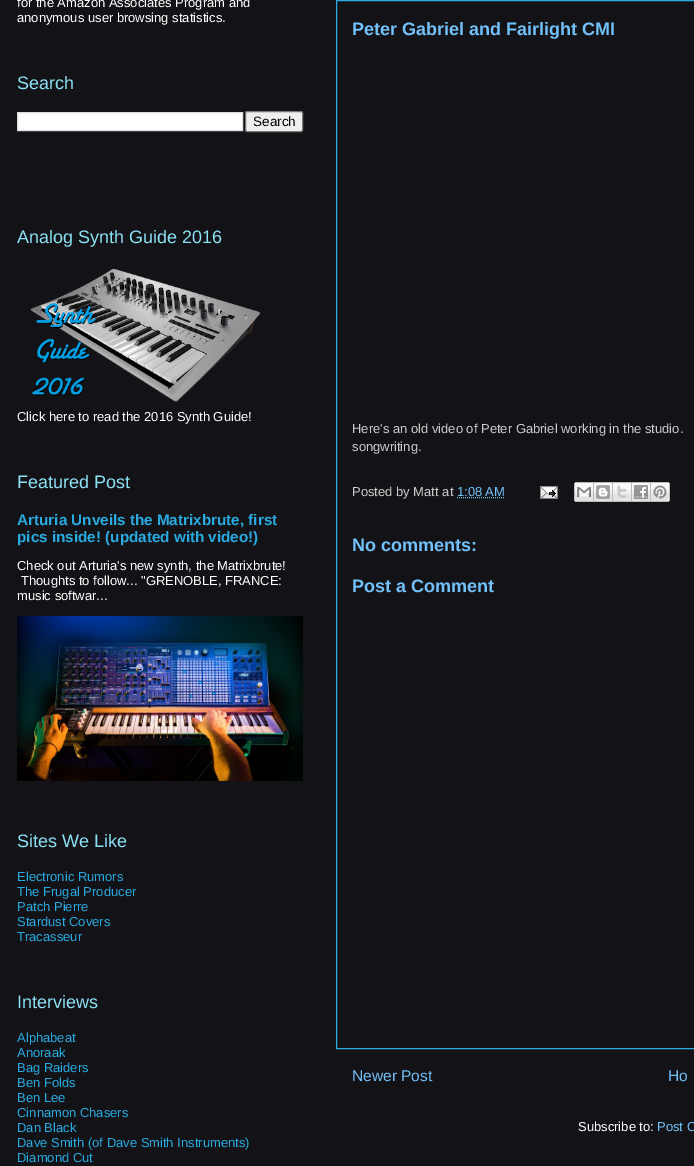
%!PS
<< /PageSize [694 1166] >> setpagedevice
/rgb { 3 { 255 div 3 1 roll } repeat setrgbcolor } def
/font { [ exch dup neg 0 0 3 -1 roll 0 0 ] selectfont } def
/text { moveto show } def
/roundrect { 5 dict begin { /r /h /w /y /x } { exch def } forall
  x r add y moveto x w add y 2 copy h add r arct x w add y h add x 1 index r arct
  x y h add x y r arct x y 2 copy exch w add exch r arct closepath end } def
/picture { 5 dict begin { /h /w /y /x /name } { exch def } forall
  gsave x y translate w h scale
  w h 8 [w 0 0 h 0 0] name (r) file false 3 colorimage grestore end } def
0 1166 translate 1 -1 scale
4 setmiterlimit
19 19 23 rgb
0 0 694 1166 rectfill
255 255 255 rgb
17.5 112.5 moveto 225 0 rlineto 0 18 rlineto -225 0 rlineto closepath gsave fill grestore
221 221 221 rgb
stroke
239 239 239 rgb
245.5 111.5 57 20 1.5 roundrect gsave fill grestore
118 118 118 rgb
stroke
(img_01.rgb) 30 268 231 135 picture
(img_02.rgb) 17 616 286 165 picture
41 170 225 rgb
336.5 0.5 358 1048 rectstroke
114 193 250 rgb
[1 1] 0 setdash
457 497.5 moveto 47 0 rlineto stroke
(img_03.rgb) 540 486 18 13 picture
(img_04.rgb) 574 482 20 20 picture
(img_05.rgb) 594 482 19 20 picture
(img_06.rgb) 613 482 19 20 picture
(img_07.rgb) 632 482 19 20 picture
(img_08.rgb) 651 482 19 20 picture
/LiberationSans-Regular 13 font
255 255 255 rgb
(for the Amazon Associates Program and) 17 7 text
(anonymous user browsing statistics.) 17 22 text
/LiberationSans-Regular 18 font
140 225 245 rgb
(Search) 17 89 text
/LiberationSans-Regular 13.5 font
0 0 0 rgb
(Search) 253 126 text
/LiberationSans-Regular 18 font
140 225 245 rgb
(Analog Synth Guide 2016) 17 243 text
/LiberationSans-Regular 13 font
255 255 255 rgb
(Click here to read the 2016 Synth Guide!) 17 421 text
/LiberationSans-Regular 18 font
140 225 245 rgb
(Featured Post) 17 488 text
/LiberationSans-Bold 15.25 font
41 170 225 rgb
(Arturia Unveils the Matrixbrute, first) 17 525 text
(pics inside! \(updated with video!\)) 17 542 text
/LiberationSans-Regular 13 font
255 255 255 rgb
(Check out Arturia's new synth, the Matrixbrute!) 17 570 text
(Thoughts to follow... "GRENOBLE, FRANCE:) 21 585 text
(music softwar...) 17 600 text
/LiberationSans-Regular 18 font
140 225 245 rgb
(Sites We Like) 17 847 text
/LiberationSans-Regular 13 font
41 170 225 rgb
(Electronic Rumors) 17 881 text
(The Frugal Producer) 17 896 text
(Patch Pierre) 17 911 text
(Stardust Covers) 17 926 text
(Tracasseur) 17 941 text
/LiberationSans-Regular 18 font
140 225 245 rgb
(Interviews) 17 1008 text
/LiberationSans-Regular 13 font
41 170 225 rgb
(Alphabeat) 17 1042 text
(Anoraak) 17 1057 text
(Bag Raiders) 17 1072 text
(Ben Folds) 17 1087 text
(Ben Lee) 17 1102 text
(Cinnamon Chasers) 17 1117 text
(Dan Black) 17 1132 text
(Dave Smith \(of Dave Smith Instruments\)) 17 1147 text
(Diamond Cut) 17 1162 text
/LiberationSans-Bold 18 font
114 193 250 rgb
(Peter Gabriel and Fairlight CMI) 352 35 text
/LiberationSans-Regular 13 font
204 204 204 rgb
(Here's an old video of Peter Gabriel working in the studio.) 352 433 text
(songwriting.) 352 451 text
(Posted by Matt at) 352 496 text
114 193 250 rgb
(1:08 AM) 457 496 text
/LiberationSans-Bold 18 font
(No comments:) 352 551 text
(Post a Comment) 352 592 text
/LiberationSans-Regular 15.5 font
(Newer Post) 352 1081 text
(Ho) 668 1081 text
/LiberationSans-Regular 13 font
255 255 255 rgb
(Subscribe to:) 578 1131 text
114 193 250 rgb
(Post C) 657 1131 text
showpage
